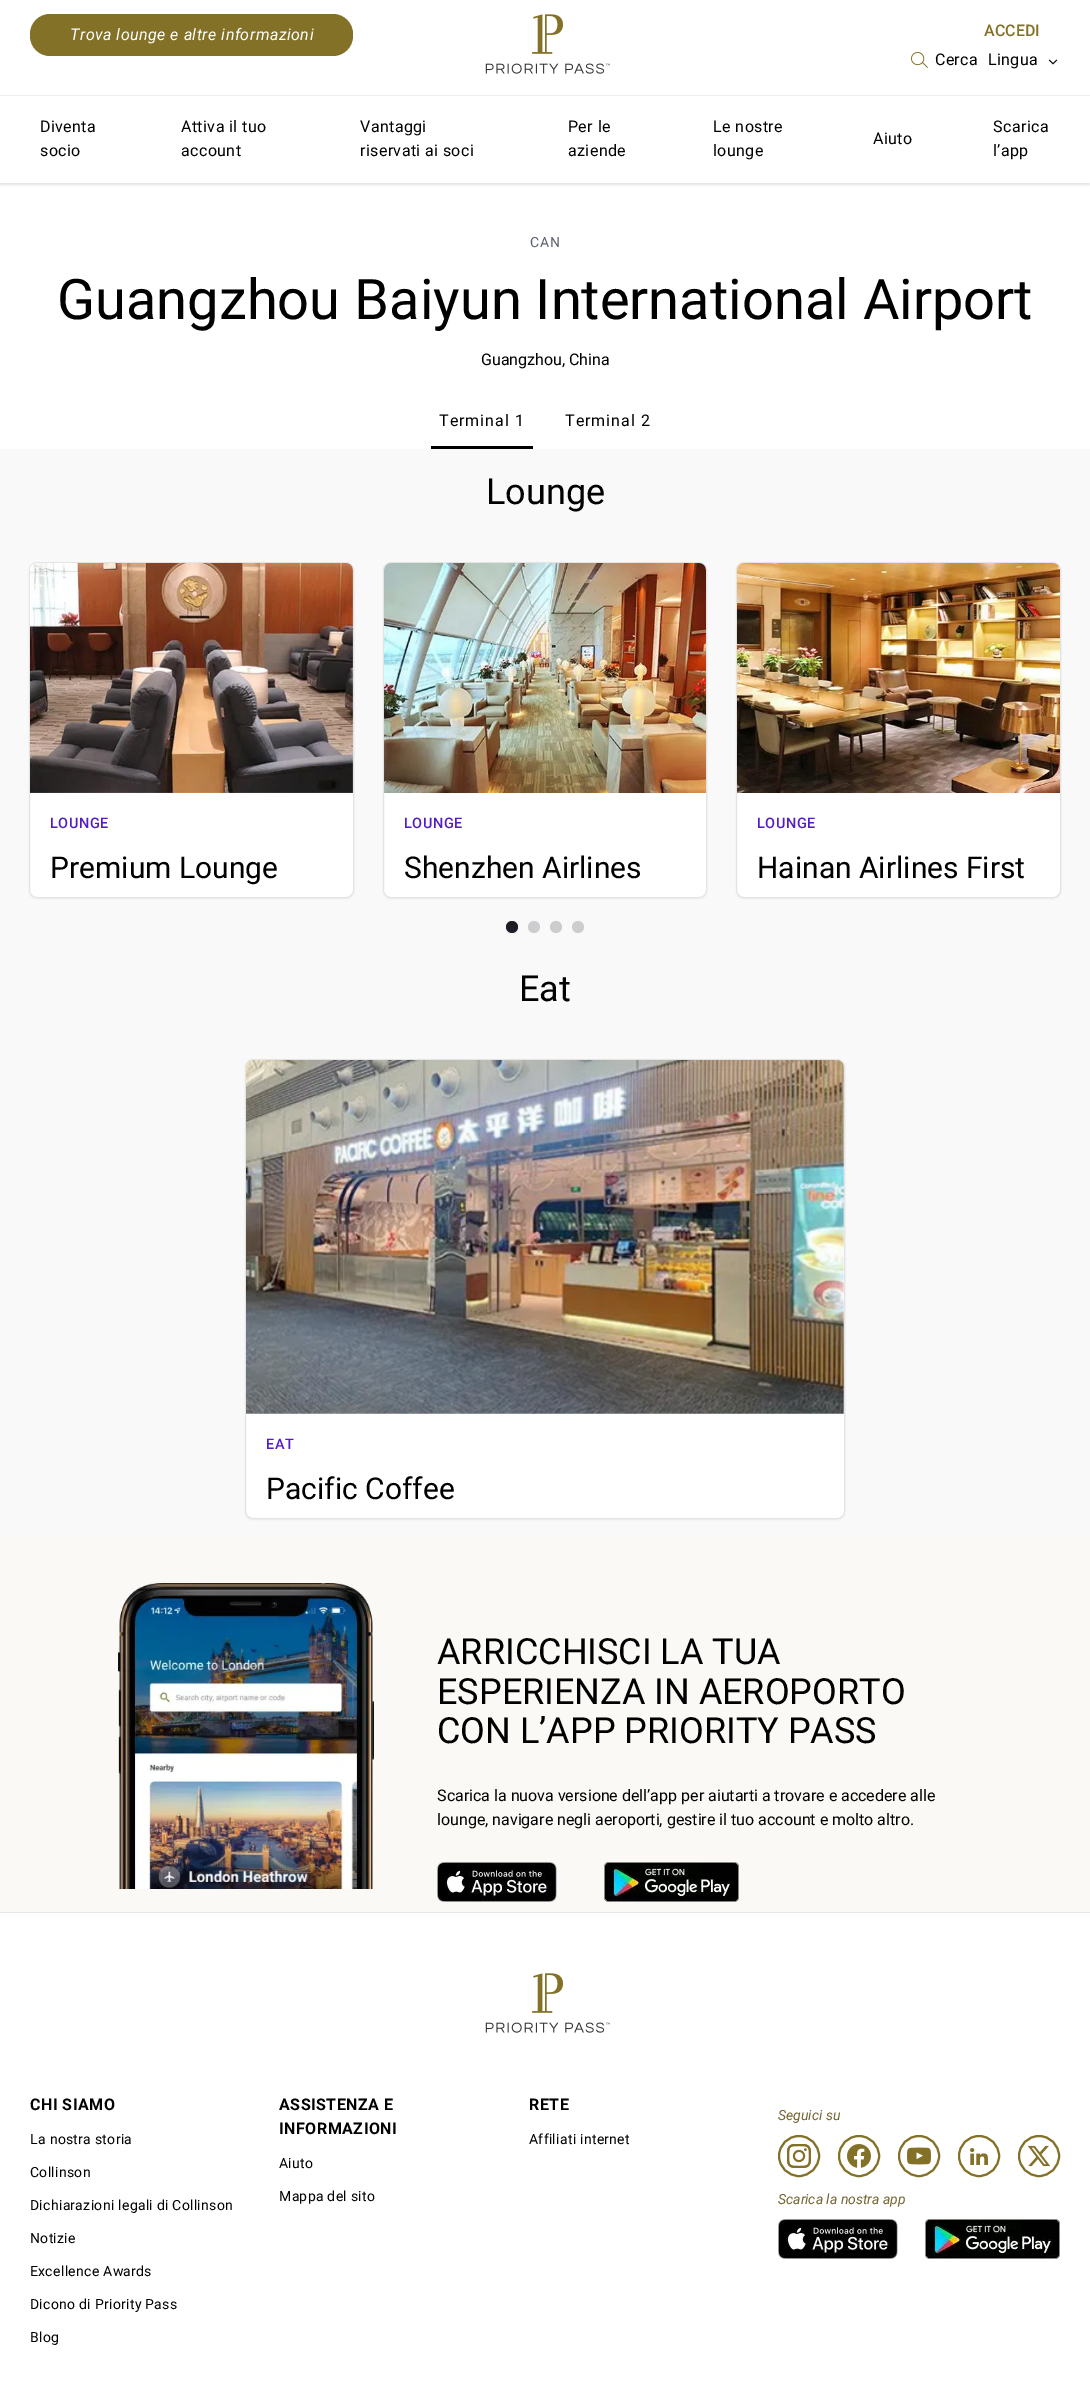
%!PS
<< /PageSize [1090 2407] /PageUsesTransparency true >> setpagedevice
/rgb { 3 { 255 div 3 1 roll } repeat setrgbcolor } def
/font { [ exch dup neg 0 0 3 -1 roll 0 0 ] selectfont } def
/text { moveto show } def
/alpha { dup .setfillconstantalpha .setstrokeconstantalpha } def
/circle { newpath 0 360 arc closepath } def
/roundrect { 5 dict begin { /r /h /w /y /x } { exch def } forall
  x r add y moveto x w add y 2 copy h add r arct x w add y h add x 1 index r arct
  x y h add x y r arct x y 2 copy exch w add exch r arct closepath end } def
/shadow { 12 dict begin { /a /b /q /h /w /y /x } { exch def } forall gsave /was 0 def
  9 -2 -9 { dup b mul 4 div /e exch def 1 sub .425 mul 2.718 exch exp 1 add a .99 .min exch div /now exch def
    1 1 now sub 1 was sub div sub alpha /was now def
    w h .min e 2 mul add 0 gt { x e sub y e sub w e 2 mul add h e 2 mul add
      q e add b .6 mul add w h .min 2 div e add .min 0 .max roundrect fill } if } for grestore end } def
/picture { 5 dict begin { /h /w /y /x /name } { exch def } forall
  gsave x y translate w h scale
  w h 8 [w 0 0 h 0 0] name (r) file false 3 colorimage grestore end } def
0 .pushpdf14devicefilter
0 2407 translate 1 -1 scale
4 setmiterlimit
255 255 255 rgb
0 0 1090 2407 rectfill
gsave
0 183 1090 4 rectclip
227 225 225 rgb
0 2 1090 183 0 1 1 shadow
grestore
238 238 238 rgb
0 95 1090 1 rectfill
130 113 39 rgb
30 14 323 42 20 roundrect fill
(img_01.rgb) 485 14 125 60 picture
(img_02.rgb) 911 52 17 16 picture
(img_03.rgb) 1048 59 10 6 picture
249 249 249 rgb
0 449 1090 1086 rectfill
0 0 0 rgb
431 446 102 3 rectfill
29 563 325 336 8 1 0.05 shadow
255 255 255 rgb
29.5 562.5 324 335 7.5 roundrect gsave fill grestore
227 228 227 rgb
stroke
(img_04.rgb) 30 563 323 230 picture
0 0 0 rgb
383 563 324 336 8 1 0.05 shadow
255 255 255 rgb
383.5 562.5 323 335 7.5 roundrect gsave fill grestore
227 228 227 rgb
stroke
(img_05.rgb) 384 563 322 230 picture
0 0 0 rgb
736 563 325 336 8 1 0.05 shadow
255 255 255 rgb
736.5 562.5 324 335 7.5 roundrect gsave fill grestore
227 228 227 rgb
stroke
(img_06.rgb) 737 563 323 230 picture
30 31 38 rgb
512 927 6 circle fill
205 205 207 rgb
534 927 6 circle fill
556 927 6 circle fill
578 927 6 circle fill
0 0 0 rgb
245 1060 600 460 8 1 0.05 shadow
255 255 255 rgb
245.5 1059.5 599 459 7.5 roundrect gsave fill grestore
227 228 227 rgb
stroke
(img_07.rgb) 246 1060 598 354 picture
250 249 245 rgb
0 1535 1090 377 rectfill
(img_08.rgb) 118 1583 256 306 picture
(img_09.rgb) 437 1862 120 40 picture
(img_10.rgb) 604 1862 135 40 picture
229 231 235 rgb
0 1912 1090 1 rectfill
(img_01.rgb) 485 1973 125 60 picture
130 113 39 rgb
2 setlinewidth
799 2156 20 circle stroke
(img_11.rgb) 787 2144 24 24 picture
859 2156 20 circle stroke
(img_12.rgb) 847 2144 24 24 picture
919 2156 20 circle stroke
(img_13.rgb) 907 2147 24 18 picture
979 2156 20 circle stroke
(img_14.rgb) 970 2148 18 17 picture
1039 2156 20 circle stroke
(img_15.rgb) 1028 2145 22 22 picture
(img_16.rgb) 778 2219 120 40 picture
(img_17.rgb) 925 2219 135 40 picture
/Roboto-Italic 16 font
255 255 255 rgb
70 40 moveto 0.5 0 (Trova lounge e altre informazioni) ashow
/Roboto-Medium 16 font
130 113 39 rgb
(ACCEDI) 984 36 text
/Roboto-Regular 16 font
0 0 0 rgb
935 65 moveto 0.3 0 (Cerca) ashow
988 65 moveto 0.3 0 (Lingua) ashow
40 132 moveto 0.4 0 (Diventa) ashow
40 156 moveto 0.4 0 (socio) ashow
181 132 moveto 0.4 0 (Attiva il tuo) ashow
181 156 moveto 0.4 0 (account) ashow
360 132 moveto 0.4 0 (Vantaggi) ashow
360 156 moveto 0.4 0 (riservati ai soci) ashow
568 132 moveto 0.4 0 (Per le) ashow
568 156 moveto 0.4 0 (aziende) ashow
713 132 moveto 0.4 0 (Le nostre) ashow
713 156 moveto 0.4 0 (lounge) ashow
873 144 moveto 0.4 0 (Aiuto) ashow
993 132 moveto 0.4 0 (Scarica) ashow
993 156 moveto 0.4 0 (l’app) ashow
/Roboto-Regular 14 font
91 94 107 rgb
530 247 moveto 1 0 (CAN) ashow
/Roboto-Regular 56 font
0 0 0 rgb
(Guangzhou Baiyun International Airport) 57 319 text
/Roboto-Regular 16 font
(Guangzhou, China) 481 365 text
439 426 moveto 1 0 (Terminal 1) ashow
565 426 moveto 1 0 (Terminal 2) ashow
/Roboto-Regular 36 font
(Lounge) 486 504 text
/Roboto-Medium 14.5 font
84 28 196 rgb
50 828 moveto 0.5 0 (LOUNGE) ashow
/Roboto-Regular 30 font
0 0 0 rgb
(Premium Lounge) 50 878 text
/Roboto-Medium 14.5 font
84 28 196 rgb
404 828 moveto 0.5 0 (LOUNGE) ashow
/Roboto-Regular 30 font
0 0 0 rgb
(Shenzhen Airlines) 404 878 text
/Roboto-Medium 14.5 font
84 28 196 rgb
757 828 moveto 0.5 0 (LOUNGE) ashow
/Roboto-Regular 30 font
0 0 0 rgb
(Hainan Airlines First) 757 878 text
/Roboto-Regular 36 font
(Eat) 519 1001 text
/Roboto-Medium 14.5 font
84 28 196 rgb
266 1449 moveto 0.5 0 (EAT) ashow
/Roboto-Regular 30 font
0 0 0 rgb
(Pacific Coffee) 266 1499 text
/Roboto-Regular 36 font
(ARRICCHISCI LA TUA) 437 1664 text
(ESPERIENZA IN AEROPORTO) 437 1704 text
(CON L’APP PRIORITY PASS) 437 1743 text
/Roboto-Regular 16 font
(Scarica la nuova versione dell’app per aiutarti a trovare e accedere alle) 437 1801 text
(lounge, navigare negli aeroporti, gestire il tuo account e molto altro.) 437 1825 text
/Roboto-Bold 16 font
30 2110 moveto 0.5 0 (CHI SIAMO) ashow
/Roboto-Regular 14 font
30 2144 moveto 0.3 0 (La nostra storia) ashow
30 2177 moveto 0.3 0 (Collinson) ashow
30 2210 moveto 0.3 0 (Dichiarazioni legali di Collinson) ashow
30 2243 moveto 0.3 0 (Notizie) ashow
30 2276 moveto 0.3 0 (Excellence Awards) ashow
30 2309 moveto 0.3 0 (Dicono di Priority Pass) ashow
30 2342 moveto 0.3 0 (Blog) ashow
/Roboto-Bold 16 font
279 2110 moveto 0.5 0 (ASSISTENZA E) ashow
279 2134 moveto 0.5 0 (INFORMAZIONI) ashow
/Roboto-Regular 14 font
279 2168 moveto 0.3 0 (Aiuto) ashow
279 2201 moveto 0.3 0 (Mappa del sito) ashow
/Roboto-Bold 16 font
529 2110 moveto 0.5 0 (RETE) ashow
/Roboto-Regular 14 font
529 2144 moveto 0.3 0 (Affiliati internet) ashow
/Roboto-Italic 14 font
116 102 50 rgb
(Seguici su) 778 2120 text
(Scarica la nostra app) 778 2204 text
.poppdf14devicefilter showpage
